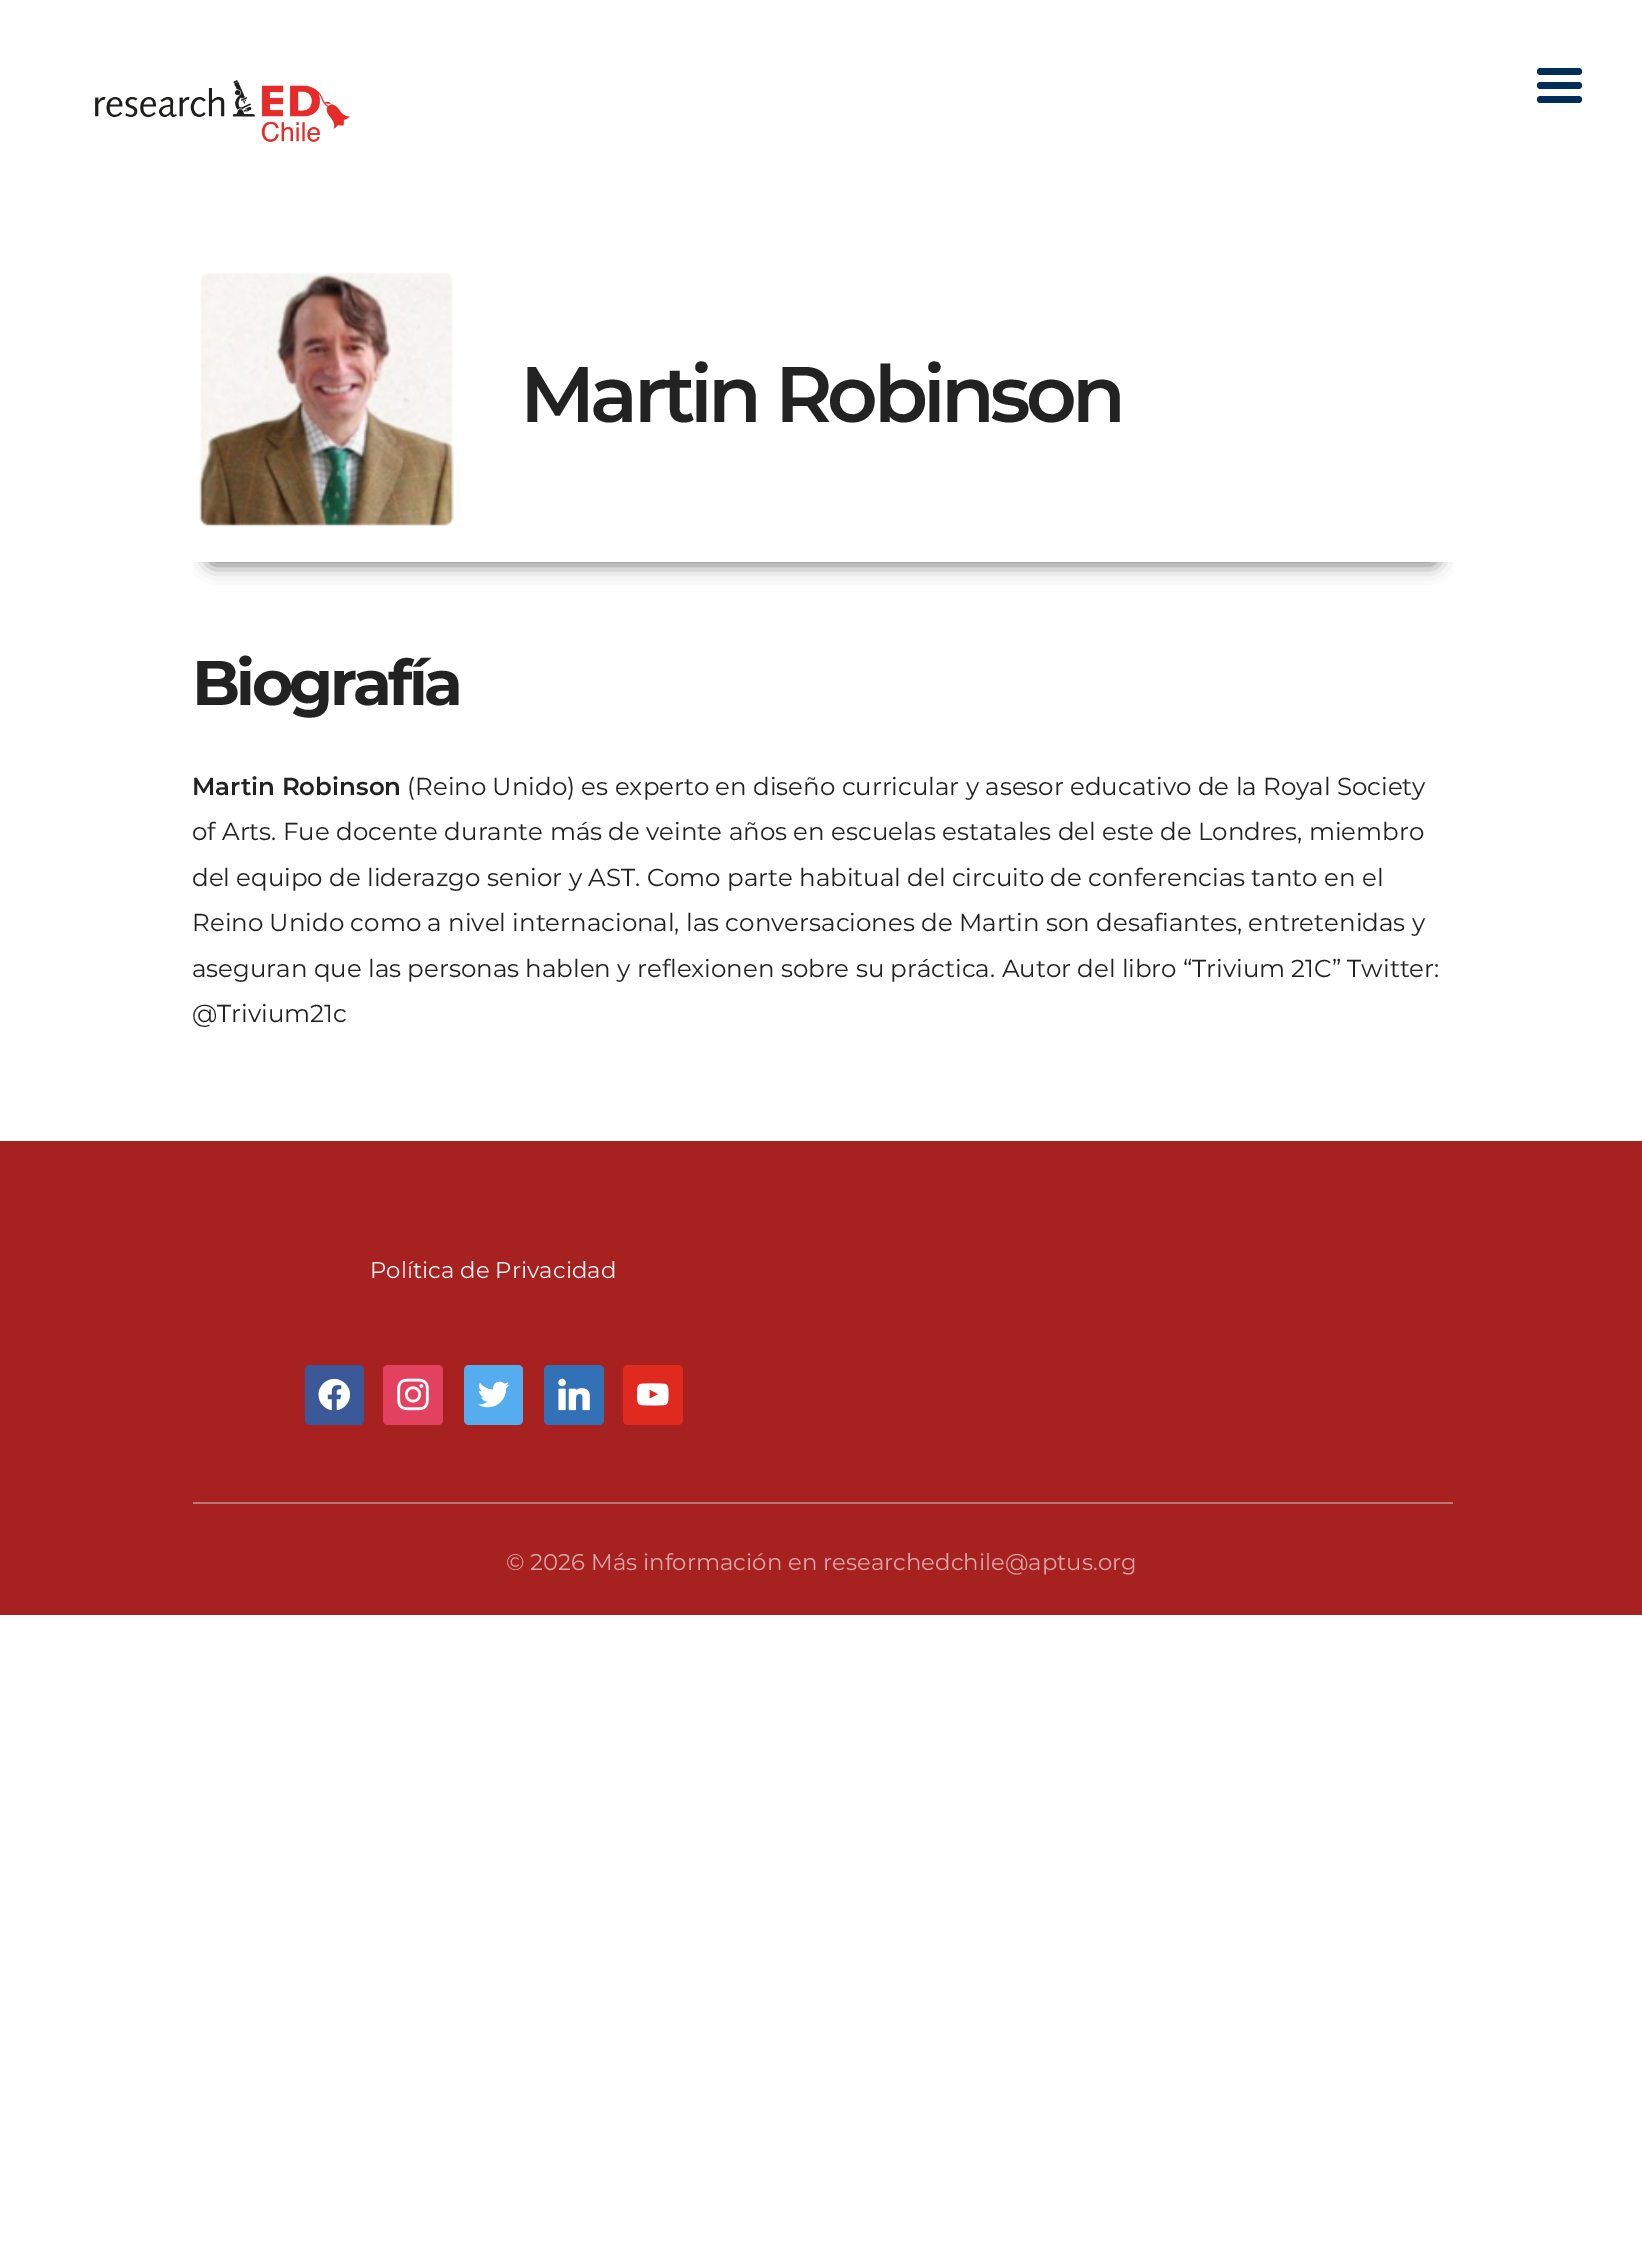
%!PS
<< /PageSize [1642 2262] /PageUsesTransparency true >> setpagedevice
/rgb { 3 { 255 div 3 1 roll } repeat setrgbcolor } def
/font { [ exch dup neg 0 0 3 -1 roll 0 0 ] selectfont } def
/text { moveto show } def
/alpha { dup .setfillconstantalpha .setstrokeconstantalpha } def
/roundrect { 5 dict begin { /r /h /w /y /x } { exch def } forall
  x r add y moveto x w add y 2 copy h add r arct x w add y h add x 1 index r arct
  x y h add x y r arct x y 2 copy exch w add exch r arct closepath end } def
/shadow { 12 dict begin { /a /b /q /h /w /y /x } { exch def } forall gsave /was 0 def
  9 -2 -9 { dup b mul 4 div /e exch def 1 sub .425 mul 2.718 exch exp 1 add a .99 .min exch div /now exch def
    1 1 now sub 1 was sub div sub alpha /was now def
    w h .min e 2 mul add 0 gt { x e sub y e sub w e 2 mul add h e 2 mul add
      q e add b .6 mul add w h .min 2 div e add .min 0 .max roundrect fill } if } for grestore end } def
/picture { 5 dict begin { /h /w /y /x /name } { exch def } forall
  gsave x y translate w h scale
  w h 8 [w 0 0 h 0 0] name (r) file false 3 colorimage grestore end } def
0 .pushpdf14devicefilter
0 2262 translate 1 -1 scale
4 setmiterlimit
255 255 255 rgb
0 0 1642 2262 rectfill
(img_01.rgb) 95 80 255 62 picture
0 46 91 rgb
1537 82 45 7 3.5 roundrect fill
1537 68 45 7 3.5 roundrect fill
1537 96 45 7 3.5 roundrect fill
gsave
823 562 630 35 rectclip
119 119 119 rgb
172 541 1267 24 12 9 1 shadow
grestore
gsave
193 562 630 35 rectclip
119 119 119 rgb
207 541 1267 24 12 9 1 shadow
grestore
(img_02.rgb) 199 273 255 253 picture
166 33 31 rgb
0 1141 1642 474 rectfill
59 89 152 rgb
305 1365 59 60 5 roundrect fill
(img_03.rgb) 318 1378 32 33 picture
228 64 95 rgb
383 1365 60 60 5 roundrect fill
(img_04.rgb) 397 1378 32 33 picture
85 172 238 rgb
464 1365 59 60 5 roundrect fill
(img_05.rgb) 478 1381 32 27 picture
51 113 183 rgb
544 1365 60 60 5 roundrect fill
(img_06.rgb) 558 1378 32 33 picture
224 42 32 rgb
623 1365 60 60 5 roundrect fill
(img_07.rgb) 637 1383 32 23 picture
185 119 118 rgb
193 1502 1260 2 rectfill
/Montserrat-SemiBold 78.75 font
34 34 34 rgb
520 422 moveto -4.75 0 (Martin Robinson) ashow
/Montserrat-Bold 63 font
192 705 moveto -3.75 0 (Biografía) ashow
/Montserrat-SemiBold 24.5 font
(Martin Robinson) 192 795 text
/Montserrat-Regular 24.5 font
(\(Reino Unido\) es experto en diseño curricular y asesor educativo de la Royal Society) 407 795 text
(of Arts. Fue docente durante más de veinte años en escuelas estatales del este de Londres, miembro) 192 840 text
(del equipo de liderazgo senior y AST. Como parte habitual del circuito de conferencias tanto en el) 192 886 text
(Reino Unido como a nivel internacional, las conversaciones de Martin son desafiantes, entretenidas y) 192 931 text
(aseguran que las personas hablen y reflexionen sobre su práctica. Autor del libro “Trivium 21C” Twitter:) 192 977 text
(@Trivium21c) 192 1022 text
/Montserrat-Regular 22.75 font
243 243 243 rgb
(Política de Privacidad) 370 1278 text
219 166 165 rgb
(© 2026 Más información en researchedchile@aptus.org) 506 1570 text
.poppdf14devicefilter showpage
